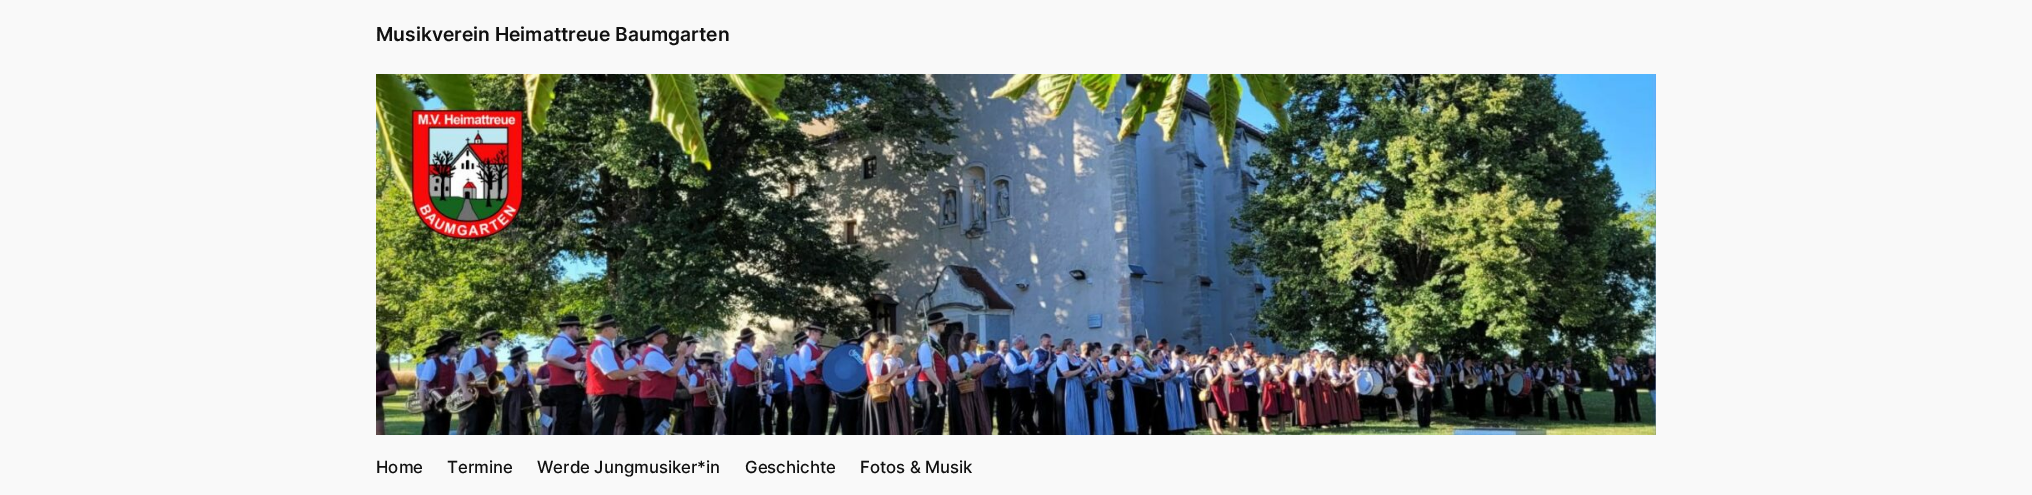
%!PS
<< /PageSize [2032 495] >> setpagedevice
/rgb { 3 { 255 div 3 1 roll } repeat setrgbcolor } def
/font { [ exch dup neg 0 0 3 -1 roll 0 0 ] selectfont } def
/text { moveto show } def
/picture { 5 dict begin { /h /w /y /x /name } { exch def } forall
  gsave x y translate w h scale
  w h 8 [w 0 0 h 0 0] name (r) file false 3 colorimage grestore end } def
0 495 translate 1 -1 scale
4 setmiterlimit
249 249 249 rgb
0 0 2032 495 rectfill
(img_01.rgb) 376 74 1280 361 picture
/Inter-SemiBold 19.25 font
17 17 17 rgb
(Musikverein Heimattreue Baumgarten) 376 41 text
/Inter-Medium 16.75 font
(Home) 376 473 text
(Termine) 447 473 text
(Werde Jungmusiker*in) 537 473 text
(Geschichte) 745 473 text
(Fotos & Musik) 860 473 text
showpage
